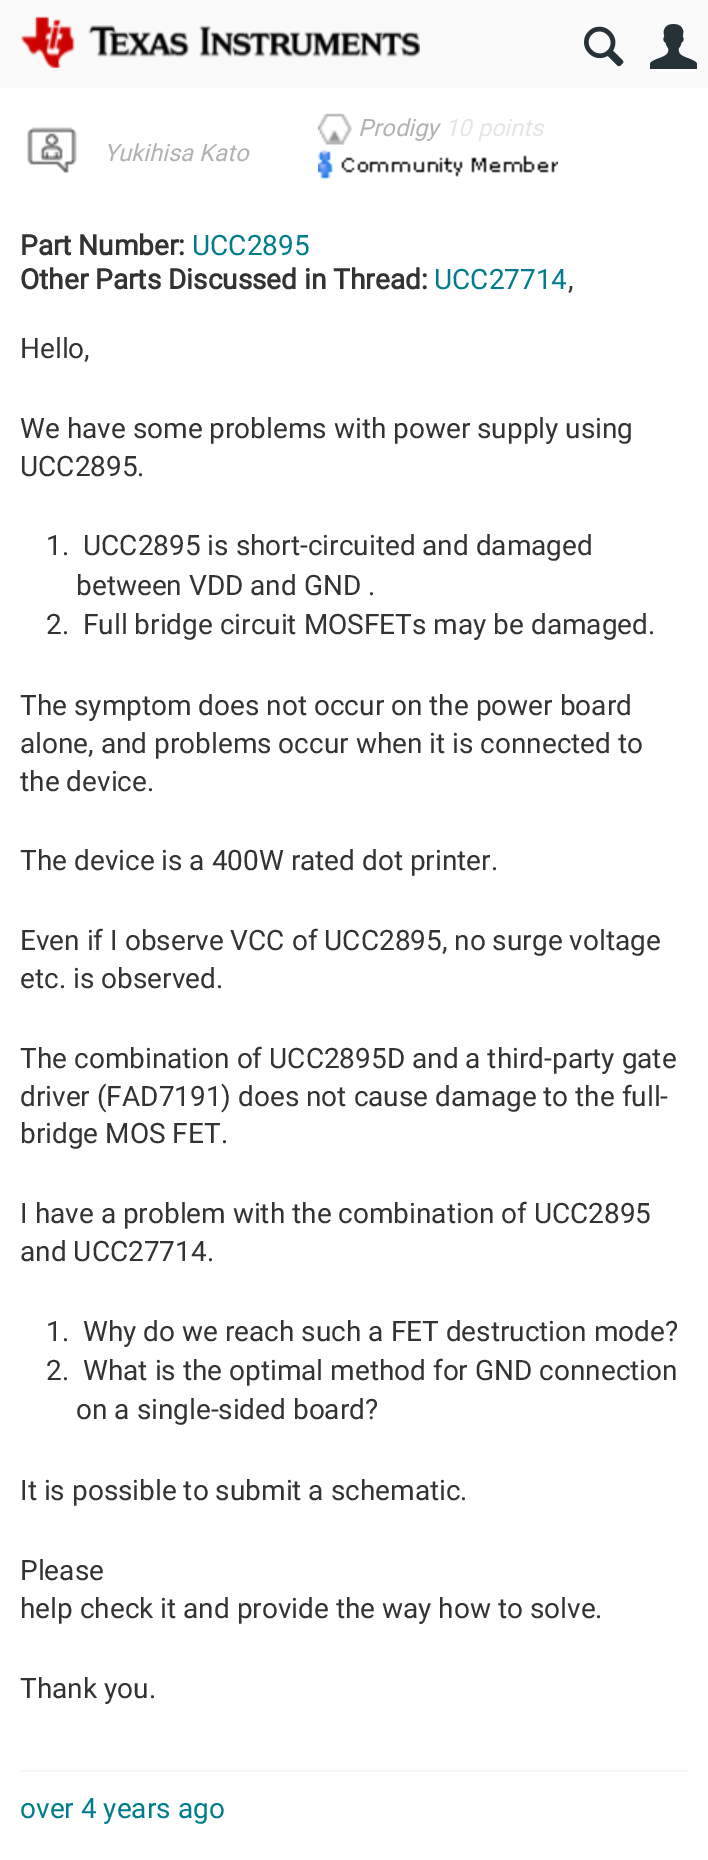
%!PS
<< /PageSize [708 1860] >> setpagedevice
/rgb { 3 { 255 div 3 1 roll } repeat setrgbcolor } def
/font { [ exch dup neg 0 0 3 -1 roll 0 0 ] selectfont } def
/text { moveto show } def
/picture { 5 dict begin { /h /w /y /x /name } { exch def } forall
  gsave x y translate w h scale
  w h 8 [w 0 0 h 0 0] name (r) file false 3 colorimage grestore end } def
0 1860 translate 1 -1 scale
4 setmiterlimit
255 255 255 rgb
0 0 708 1860 rectfill
250 250 250 rgb
0 0 708 88 rectfill
(img_01.rgb) 21 16 399 52 picture
(img_02.rgb) 584 26 40 41 picture
(img_03.rgb) 650 24 47 45 picture
(img_04.rgb) 27 127 50 46 picture
(img_05.rgb) 27 127 50 46 picture
(img_06.rgb) 318 113 34 32 picture
(img_07.rgb) 318 149 240 30 picture
247 247 247 rgb
20 1770 668 2 rectfill
/Roboto-Italic 23.75 font
178 178 178 rgb
(Yukihisa Kato) 104 161 text
(Prodigy) 358 136 text
229 229 229 rgb
(10 points) 445 136 text
/Roboto-Bold 28 font
51 51 51 rgb
(Part Number:) 20 255 text
/Roboto-Regular 28 font
0 124 140 rgb
(UCC2895) 192 255 text
/Roboto-Bold 28 font
51 51 51 rgb
(Other Parts Discussed in Thread:) 20 289 text
/Roboto-Regular 28 font
0 124 140 rgb
(UCC27714) 434 289 text
51 51 51 rgb
(,) 568 289 text
(Hello,) 20 358 text
(We have some problems with power supply using) 20 438 text
(UCC2895.) 20 476 text
(1.) 46 555 text
(UCC2895 is short-circuited and damaged) 83 555 text
(between VDD and GND .) 76 595 text
(2.) 46 634 text
(Full bridge circuit MOSFETs may be damaged.) 83 634 text
(The symptom does not occur on the power board) 20 715 text
(alone, and problems occur when it is connected to) 20 753 text
(the device.) 20 791 text
(The device is a 400W rated dot printer.) 20 870 text
(Even if I observe VCC of UCC2895, no surge voltage) 20 950 text
(etc. is observed.) 20 988 text
(The combination of UCC2895D and a third-party gate) 20 1068 text
(driver \(FAD7191\) does not cause damage to the full-) 20 1106 text
(bridge MOS FET.) 20 1143 text
(I have a problem with the combination of UCC2895) 20 1223 text
(and UCC27714.) 20 1261 text
(1.) 46 1341 text
(Why do we reach such a FET destruction mode?) 83 1341 text
(2.) 46 1380 text
(What is the optimal method for GND connection) 83 1380 text
(on a single-sided board?) 76 1419 text
(It is possible to submit a schematic.) 20 1500 text
(Please) 20 1580 text
(help check it and provide the way how to solve.) 20 1618 text
(Thank you.) 20 1698 text
0 124 140 rgb
(over 4 years ago) 20 1818 text
showpage
